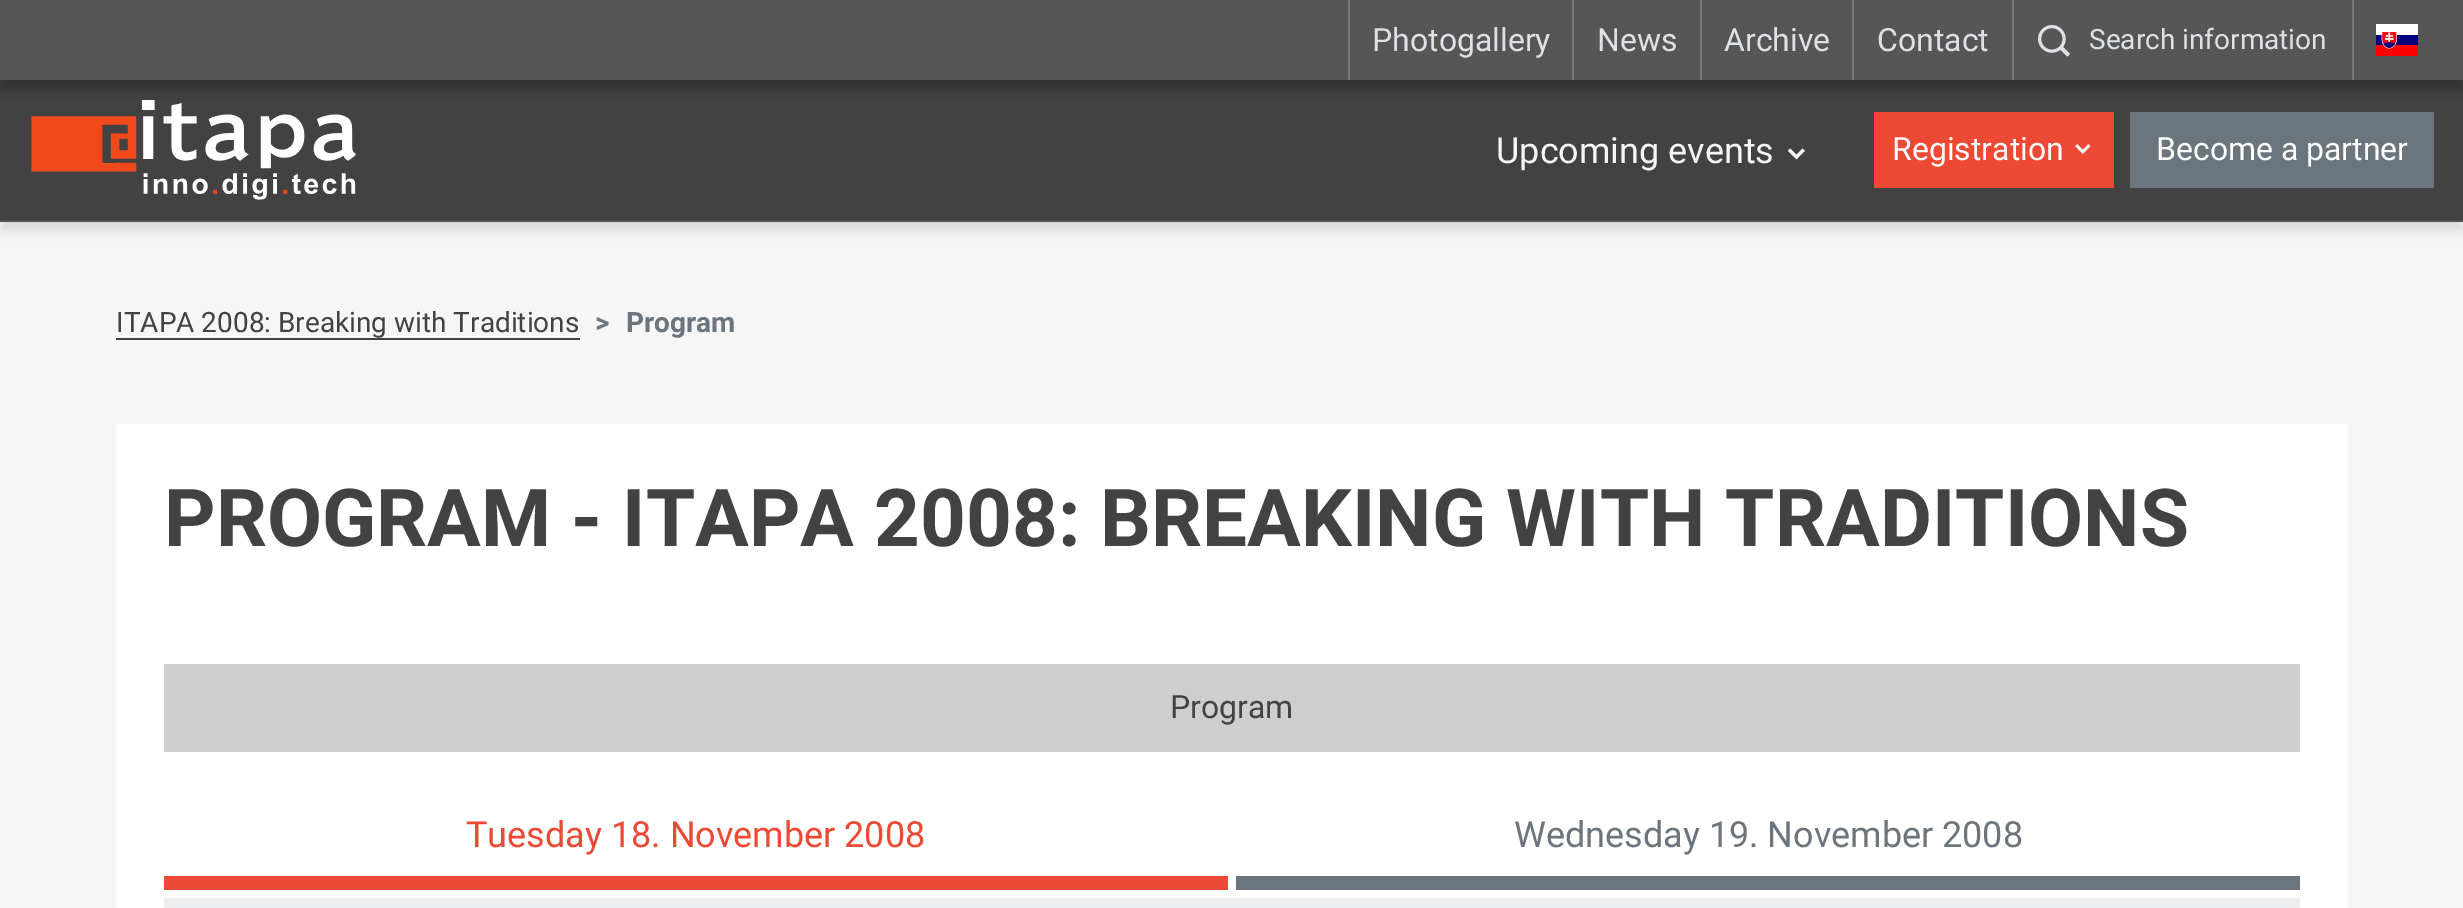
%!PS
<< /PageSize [2463 908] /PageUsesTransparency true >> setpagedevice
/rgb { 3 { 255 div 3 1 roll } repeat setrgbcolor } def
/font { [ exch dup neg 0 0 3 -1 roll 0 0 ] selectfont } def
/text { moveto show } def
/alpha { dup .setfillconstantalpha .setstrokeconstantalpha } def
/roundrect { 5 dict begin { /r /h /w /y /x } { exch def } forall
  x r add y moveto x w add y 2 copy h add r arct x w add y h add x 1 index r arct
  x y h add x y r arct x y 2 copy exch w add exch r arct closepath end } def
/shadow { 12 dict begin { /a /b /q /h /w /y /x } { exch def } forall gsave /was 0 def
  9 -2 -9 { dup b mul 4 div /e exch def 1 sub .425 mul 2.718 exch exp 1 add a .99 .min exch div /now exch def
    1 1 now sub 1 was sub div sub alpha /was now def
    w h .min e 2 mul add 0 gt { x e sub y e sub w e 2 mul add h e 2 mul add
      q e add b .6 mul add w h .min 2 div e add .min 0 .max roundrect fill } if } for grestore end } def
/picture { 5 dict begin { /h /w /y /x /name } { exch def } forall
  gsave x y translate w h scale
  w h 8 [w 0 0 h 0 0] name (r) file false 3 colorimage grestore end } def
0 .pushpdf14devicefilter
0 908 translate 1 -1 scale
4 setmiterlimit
246 246 246 rgb
0 0 2463 908 rectfill
0 0 0 rgb
0 10 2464 222 0 5 0.1 shadow
66 66 66 rgb
0 80 2463 140 rectfill
85 85 85 rgb
0 220 2463 2 rectfill
0 0 0 rgb
0 10 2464 80 0 5 0.25 shadow
86 86 86 rgb
0 0 2463 80 rectfill
120 120 120 rgb
1348 0 2 80 rectfill
1572 0 2 80 rectfill
1700 0 2 80 rectfill
1852 0 2 80 rectfill
2012 0 2 80 rectfill
(img_01.rgb) 2038 25 32 32 picture
2352 0 2 80 rectfill
(img_02.rgb) 2376 24 42 32 picture
(img_03.rgb) 31 100 325 100 picture
(img_04.rgb) 1787 148 18 12 picture
237 73 52 rgb
1874 112 240 76 rectfill
(img_05.rgb) 2075 144 16 10 picture
108 117 125 rgb
2130 112 304 76 rectfill
66 66 66 rgb
116 338 464 2 rectfill
255 255 255 rgb
116 424 2232 484 rectfill
206 206 206 rgb
164 664 2136 88 rectfill
237 73 52 rgb
164 876 1064 14 rectfill
108 117 125 rgb
1236 876 1064 14 rectfill
237 238 239 rgb
164 898 2136 10 rectfill
/Roboto-Regular 32 font
222 226 230 rgb
(Photogallery) 1372 51 text
(News) 1597 51 text
(Archive) 1724 51 text
(Contact) 1877 51 text
/Roboto-Regular 28 font
(Search information) 2089 49 text
/Roboto-Regular 36 font
246 246 246 rgb
(Upcoming events) 1496 163 text
/Roboto-Regular 32 font
255 255 255 rgb
(Registration) 1892 160 text
(Become a partner) 2156 160 text
/Roboto-Regular 28 font
66 66 66 rgb
(ITAPA 2008: Breaking with Traditions) 116 332 text
/Roboto-Bold 28 font
108 117 125 rgb
(>) 595 332 text
(Program) 626 332 text
/Roboto-Bold 80 font
66 66 66 rgb
(PROGRAM - ITAPA 2008: BREAKING WITH TRADITIONS) 164 546 text
/Roboto-Regular 32 font
(Program) 1170 718 text
/Roboto-Regular 36 font
237 73 52 rgb
(Tuesday 18. November 2008) 466 847 text
108 117 125 rgb
(Wednesday 19. November 2008) 1514 847 text
.poppdf14devicefilter showpage
